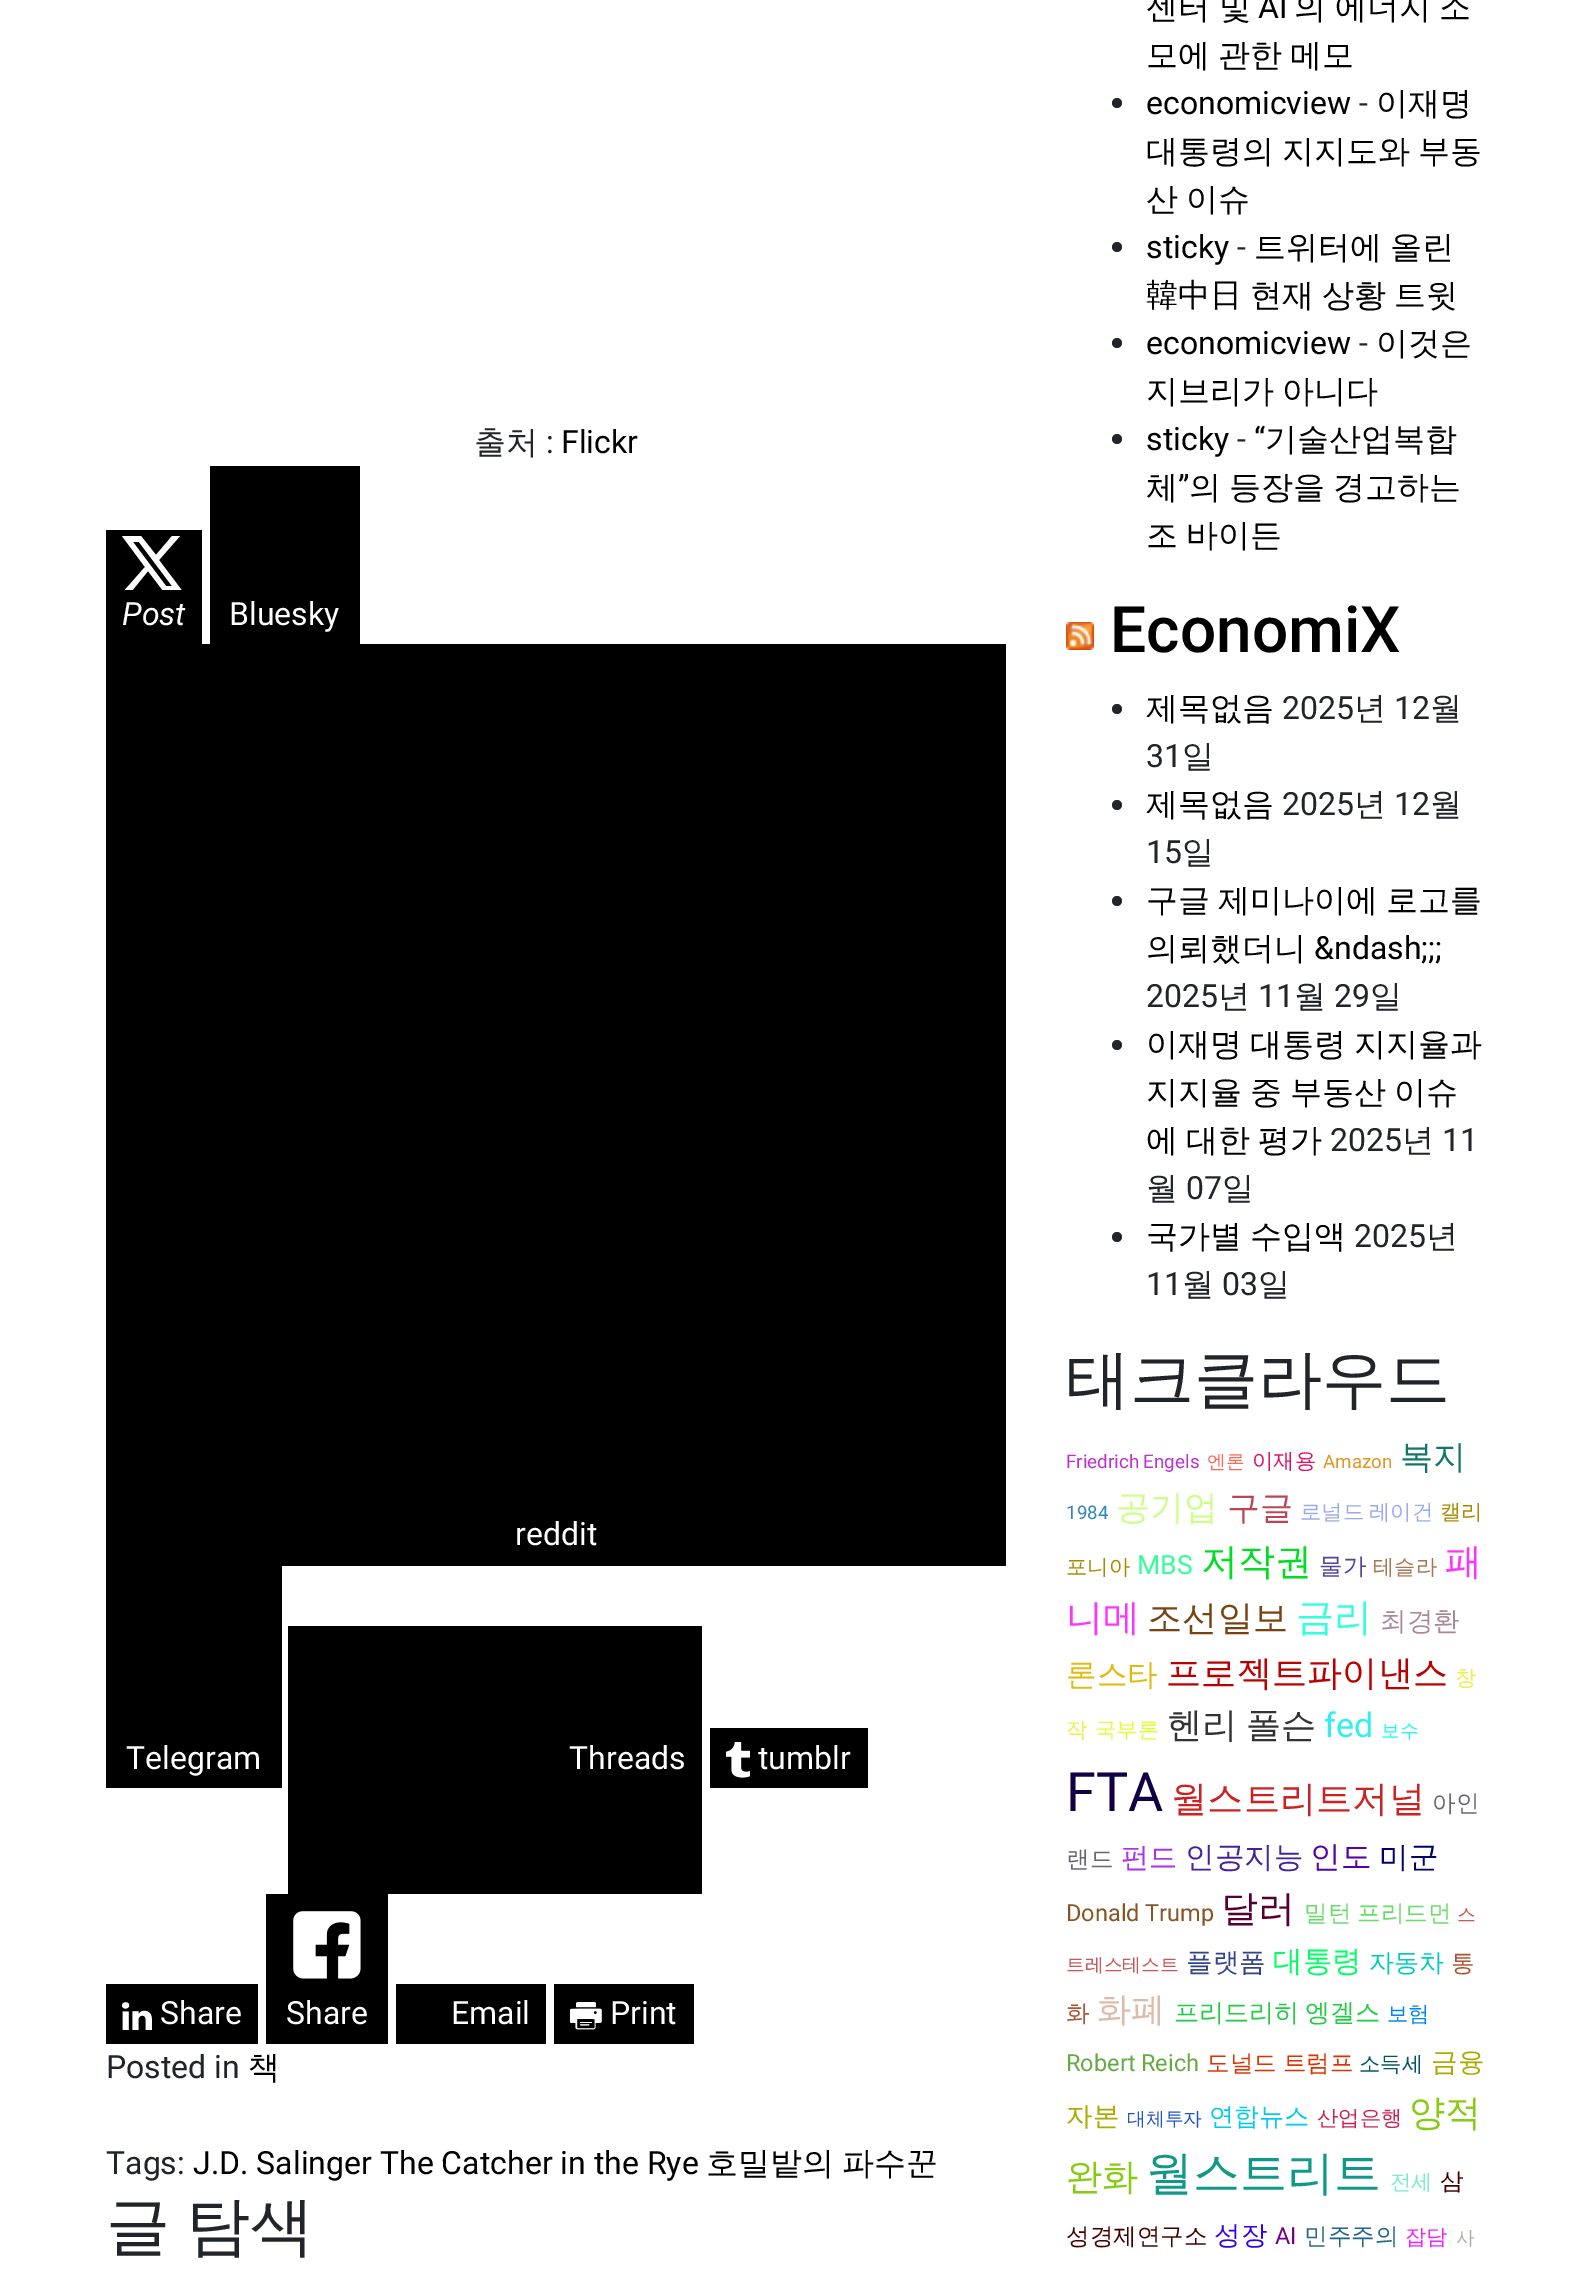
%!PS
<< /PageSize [1591 2284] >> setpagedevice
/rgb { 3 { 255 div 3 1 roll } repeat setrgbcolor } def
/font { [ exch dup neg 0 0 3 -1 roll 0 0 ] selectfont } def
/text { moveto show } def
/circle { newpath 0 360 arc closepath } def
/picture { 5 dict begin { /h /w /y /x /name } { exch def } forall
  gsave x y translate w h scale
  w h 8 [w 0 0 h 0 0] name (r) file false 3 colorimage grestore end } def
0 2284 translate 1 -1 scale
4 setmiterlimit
255 255 255 rgb
0 0 1591 2284 rectfill
0 0 0 rgb
106 530 96 114 rectfill
gsave
122 536 64 54 rectclip
255 255 255 rgb
141 536 moveto -19 0 rlineto 23 31 rlineto -22 25 rlineto 8 0 rlineto 17 -21 rlineto 16 21 rlineto 19 0 rlineto -24 -32 rlineto 21 -24 rlineto -8 0 rlineto -16 19 rlineto closepath 166 586 moveto -33 -44 rlineto 6 0 rlineto 33 44 rlineto closepath fill
grestore
210 466 150 178 rectfill
106 644 900 922 rectfill
106 1566 176 222 rectfill
288 1626 414 268 rectfill
710 1728 158 60 rectfill
(img_01.rgb) 726 1742 24 36 picture
106 1984 152 60 rectfill
(img_02.rgb) 122 2002 30 28 picture
266 1894 122 150 rectfill
(img_03.rgb) 293 1911 68 68 picture
396 1984 150 60 rectfill
554 1984 140 60 rectfill
(img_04.rgb) 570 2002 32 28 picture
33 37 41 rgb
1117 103 5 circle fill
1117 247 5 circle fill
1117 343 5 circle fill
1117 439 5 circle fill
(img_05.rgb) 1066 622 28 28 picture
1117 709 5 circle fill
1117 805 5 circle fill
1117 901 5 circle fill
1117 1045 5 circle fill
1117 1237 5 circle fill
/WenQuanYiZenHei-Medium 32 font
(출처) 474 453 text
/Roboto-Regular 32 font
(:) 546 453 text
0 0 0 rgb
(Flickr) 561 453 text
/Roboto-Italic 32 font
255 255 255 rgb
(Post) 122 625 text
/Roboto-Regular 32 font
(Bluesky) 229 625 text
(reddit) 515 1545 text
(Telegram) 126 1769 text
(Threads) 569 1769 text
(tumblr) 758 1769 text
(Share) 160 2024 text
(Share) 286 2024 text
(Email) 451 2024 text
(Print) 610 2024 text
33 37 41 rgb
(Posted in) 106 2078 text
/WenQuanYiZenHei-Medium 32 font
0 0 0 rgb
(책) 248 2078 text
/Roboto-Regular 32 font
33 37 41 rgb
(Tags:) 106 2174 text
0 0 0 rgb
(J.D. Salinger The Catcher in the Rye) 193 2174 text
/WenQuanYiZenHei-Medium 32 font
706 2174 moveto -1.5 0 32 (호밀밭의 파수꾼) widthshow
/WenQuanYiZenHei-Medium 64 font
33 37 41 rgb
106 2248 moveto -3 0 32 (글 탐색) widthshow
/WenQuanYiZenHei-Medium 32 font
0 0 0 rgb
1146 18 moveto -1 0 32 (센터 및) widthshow
/Roboto-Regular 32 font
(AI) 1258 18 text
/WenQuanYiZenHei-Medium 32 font
1294 18 moveto -1 0 32 (의 에너지 소) widthshow
1146 66 moveto -1.5 0 32 (모에 관한 메모) widthshow
/Roboto-Regular 32 font
(economicview) 1146 114 text
33 37 41 rgb
(-) 1359 114 text
/WenQuanYiZenHei-Medium 32 font
0 0 0 rgb
(이재명) 1376 114 text
1146 162 moveto -1.5 0 32 (대통령의 지지도와 부동) widthshow
1146 210 moveto -1.5 0 32 (산 이슈) widthshow
/Roboto-Regular 32 font
(sticky) 1146 258 text
33 37 41 rgb
(-) 1237 258 text
/WenQuanYiZenHei-Medium 32 font
0 0 0 rgb
1254 258 moveto -1.5 0 32 (트위터에 올린) widthshow
1146 306 moveto -1.5 0 32 (韓中日 현재 상황 트윗) widthshow
/Roboto-Regular 32 font
(economicview) 1146 354 text
33 37 41 rgb
(-) 1359 354 text
/WenQuanYiZenHei-Medium 32 font
0 0 0 rgb
(이것은) 1376 354 text
1146 402 moveto -1.5 0 32 (지브리가 아니다) widthshow
/Roboto-Regular 32 font
(sticky) 1146 450 text
33 37 41 rgb
(-) 1237 450 text
0 0 0 rgb
(“) 1254 450 text
/WenQuanYiZenHei-Medium 32 font
(기술산업복합) 1265 450 text
(체) 1146 498 text
/Roboto-Regular 32 font
(”) 1178 498 text
/WenQuanYiZenHei-Medium 32 font
1189 498 moveto -1.5 0 32 (의 등장을 경고하는) widthshow
1146 546 moveto -1.5 0 32 (조 바이든) widthshow
/Roboto-Medium 64 font
(EconomiX) 1110 652 text
/WenQuanYiZenHei-Medium 32 font
(제목없음) 1146 719 text
/Roboto-Regular 32 font
33 37 41 rgb
(2025) 1282 719 text
/WenQuanYiZenHei-Medium 32 font
(년) 1354 719 text
/Roboto-Regular 32 font
(12) 1394 719 text
/WenQuanYiZenHei-Medium 32 font
(월) 1430 719 text
/Roboto-Regular 32 font
(31) 1146 767 text
/WenQuanYiZenHei-Medium 32 font
(일) 1182 767 text
0 0 0 rgb
(제목없음) 1146 815 text
/Roboto-Regular 32 font
33 37 41 rgb
(2025) 1282 815 text
/WenQuanYiZenHei-Medium 32 font
(년) 1354 815 text
/Roboto-Regular 32 font
(12) 1394 815 text
/WenQuanYiZenHei-Medium 32 font
(월) 1430 815 text
/Roboto-Regular 32 font
(15) 1146 863 text
/WenQuanYiZenHei-Medium 32 font
(일) 1182 863 text
0 0 0 rgb
1146 911 moveto -1.5 0 32 (구글 제미나이에 로고를) widthshow
(의뢰했더니) 1146 959 text
/Roboto-Regular 32 font
(&ndash;;;) 1314 959 text
33 37 41 rgb
(2025) 1146 1007 text
/WenQuanYiZenHei-Medium 32 font
(년) 1218 1007 text
/Roboto-Regular 32 font
(11) 1258 1007 text
/WenQuanYiZenHei-Medium 32 font
(월) 1294 1007 text
/Roboto-Regular 32 font
(29) 1334 1007 text
/WenQuanYiZenHei-Medium 32 font
(일) 1370 1007 text
0 0 0 rgb
1146 1055 moveto -1.5 0 32 (이재명 대통령 지지율과) widthshow
1146 1103 moveto -1.5 0 32 (지지율 중 부동산 이슈) widthshow
1146 1151 moveto -1.5 0 32 (에 대한 평가) widthshow
/Roboto-Regular 32 font
33 37 41 rgb
(2025) 1330 1151 text
/WenQuanYiZenHei-Medium 32 font
(년) 1402 1151 text
/Roboto-Regular 32 font
(11) 1442 1151 text
/WenQuanYiZenHei-Medium 32 font
(월) 1146 1199 text
/Roboto-Regular 32 font
(07) 1186 1199 text
/WenQuanYiZenHei-Medium 32 font
(일) 1222 1199 text
0 0 0 rgb
1146 1247 moveto -1.5 0 32 (국가별 수입액) widthshow
/Roboto-Regular 32 font
33 37 41 rgb
(2025) 1354 1247 text
/WenQuanYiZenHei-Medium 32 font
(년) 1426 1247 text
/Roboto-Regular 32 font
(11) 1146 1295 text
/WenQuanYiZenHei-Medium 32 font
(월) 1182 1295 text
/Roboto-Regular 32 font
(03) 1222 1295 text
/WenQuanYiZenHei-Medium 32 font
(일) 1258 1295 text
/WenQuanYiZenHei-Medium 64 font
(태크클라우드) 1066 1401 text
/Roboto-Regular 18.75 font
187 51 204 rgb
(Friedrich Engels) 1066 1468 text
/WenQuanYiZenHei-Medium 18.75 font
255 102 85 rgb
(엔론) 1207 1468 text
/WenQuanYiZenHei-Medium 21.25 font
221 17 102 rgb
(이재용) 1252 1468 text
/Roboto-Regular 18.75 font
221 153 34 rgb
(Amazon) 1323 1468 text
/WenQuanYiZenHei-Medium 33 font
17 119 102 rgb
(복지) 1400 1468 text
/Roboto-Regular 18.75 font
51 136 187 rgb
(1984) 1066 1519 text
/WenQuanYiZenHei-Medium 34 font
204 255 136 rgb
(공기업) 1116 1519 text
/WenQuanYiZenHei-Medium 33 font
187 68 85 rgb
(구글) 1227 1519 text
/WenQuanYiZenHei-Medium 21.25 font
153 170 238 rgb
1300 1519 moveto -1 0 32 (로널드 레이건) widthshow
170 136 0 rgb
(캘리) 1440 1519 text
(포니아) 1066 1574 text
/Roboto-Regular 26.5 font
51 255 153 rgb
(MBS) 1137 1574 text
/WenQuanYiZenHei-Medium 37 font
0 221 34 rgb
(저작권) 1201 1574 text
/WenQuanYiZenHei-Medium 23.5 font
85 68 153 rgb
(물가) 1319 1574 text
/WenQuanYiZenHei-Medium 21.25 font
170 119 85 rgb
(테슬라) 1373 1574 text
/WenQuanYiZenHei-Medium 37 font
255 51 255 rgb
(패) 1445 1574 text
(니메) 1066 1630 text
/WenQuanYiZenHei-Medium 35.25 font
119 68 17 rgb
(조선일보) 1147 1630 text
/WenQuanYiZenHei-Medium 38 font
51 255 221 rgb
(금리) 1296 1630 text
/WenQuanYiZenHei-Medium 26.5 font
170 136 153 rgb
(최경환) 1380 1630 text
/WenQuanYiZenHei-Medium 30.5 font
221 187 17 rgb
(론스타) 1066 1685 text
/WenQuanYiZenHei-Medium 35.25 font
187 0 0 rgb
(프로젝트파이낸스) 1166 1685 text
/WenQuanYiZenHei-Medium 21.25 font
238 238 68 rgb
(창) 1455 1685 text
(작) 1066 1737 text
221 255 51 rgb
(국부론) 1095 1737 text
/WenQuanYiZenHei-Medium 35.25 font
51 51 51 rgb
1167 1737 moveto -2 0 32 (헨리 폴슨) widthshow
/Roboto-Regular 34 font
51 238 238 rgb
(fed) 1324 1737 text
/WenQuanYiZenHei-Medium 18.75 font
17 255 238 rgb
(보수) 1381 1737 text
/Roboto-Regular 54 font
17 0 68 rgb
(FTA) 1066 1811 text
/WenQuanYiZenHei-Medium 36.25 font
204 34 34 rgb
(월스트리트저널) 1171 1811 text
/WenQuanYiZenHei-Medium 23.5 font
102 102 119 rgb
(아인) 1432 1811 text
(랜드) 1066 1867 text
/WenQuanYiZenHei-Medium 28 font
170 51 238 rgb
(펀드) 1121 1867 text
/WenQuanYiZenHei-Medium 29.5 font
68 34 153 rgb
(인공지능) 1185 1867 text
/WenQuanYiZenHei-Medium 30.5 font
85 0 170 rgb
(인도) 1310 1867 text
/WenQuanYiZenHei-Medium 29.5 font
0 0 102 rgb
(미군) 1379 1867 text
/Roboto-Regular 23.5 font
136 85 34 rgb
(Donald Trump) 1066 1921 text
/WenQuanYiZenHei-Medium 37 font
85 0 51 rgb
(달러) 1221 1921 text
/WenQuanYiZenHei-Medium 23.5 font
102 221 102 rgb
1304 1921 moveto -1 0 32 (밀턴 프리드먼) widthshow
/WenQuanYiZenHei-Medium 18.75 font
204 85 85 rgb
(스) 1457 1921 text
(트레스테스트) 1066 1971 text
/WenQuanYiZenHei-Medium 26.5 font
51 68 136 rgb
(플랫폼) 1186 1971 text
/WenQuanYiZenHei-Medium 29.5 font
0 255 102 rgb
(대통령) 1273 1971 text
/WenQuanYiZenHei-Medium 25 font
0 204 187 rgb
(자동차) 1369 1971 text
/WenQuanYiZenHei-Medium 23.5 font
170 85 51 rgb
(통) 1451 1971 text
(화) 1066 2021 text
/WenQuanYiZenHei-Medium 34 font
221 187 170 rgb
(화폐) 1097 2021 text
/WenQuanYiZenHei-Medium 25 font
34 204 68 rgb
1174 2021 moveto -1 0 32 (프리드리히 엥겔스) widthshow
/WenQuanYiZenHei-Medium 21.25 font
0 136 238 rgb
(보험) 1387 2021 text
/Roboto-Regular 23.5 font
102 170 68 rgb
(Robert Reich) 1066 2071 text
/WenQuanYiZenHei-Medium 23.5 font
221 51 0 rgb
1206 2071 moveto -1 0 32 (도널드 트럼프) widthshow
/WenQuanYiZenHei-Medium 21.25 font
0 85 102 rgb
(소득세) 1359 2071 text
/WenQuanYiZenHei-Medium 26.5 font
170 170 0 rgb
(금융) 1431 2071 text
(자본) 1066 2125 text
/WenQuanYiZenHei-Medium 18.75 font
34 85 204 rgb
(대체투자) 1127 2125 text
/WenQuanYiZenHei-Medium 25 font
0 204 238 rgb
(연합뉴스) 1209 2125 text
/WenQuanYiZenHei-Medium 21.25 font
204 34 85 rgb
(산업은행) 1317 2125 text
/WenQuanYiZenHei-Medium 36.25 font
136 204 17 rgb
(양적) 1409 2125 text
(완화) 1066 2189 text
/WenQuanYiZenHei-Medium 47 font
17 153 136 rgb
(월스트리트) 1146 2189 text
/WenQuanYiZenHei-Medium 21.25 font
119 238 204 rgb
(전세) 1390 2189 text
/WenQuanYiZenHei-Medium 23.5 font
68 0 0 rgb
(삼) 1440 2189 text
(성경제연구소) 1066 2244 text
/WenQuanYiZenHei-Medium 26.5 font
51 0 238 rgb
(성장) 1214 2244 text
/Roboto-Regular 23.5 font
119 0 136 rgb
(AI) 1275 2244 text
/WenQuanYiZenHei-Medium 23.5 font
34 102 136 rgb
(민주주의) 1304 2244 text
/WenQuanYiZenHei-Medium 21.25 font
238 34 255 rgb
(잡담) 1405 2244 text
/WenQuanYiZenHei-Medium 18.75 font
187 170 170 rgb
(사) 1456 2244 text
showpage
